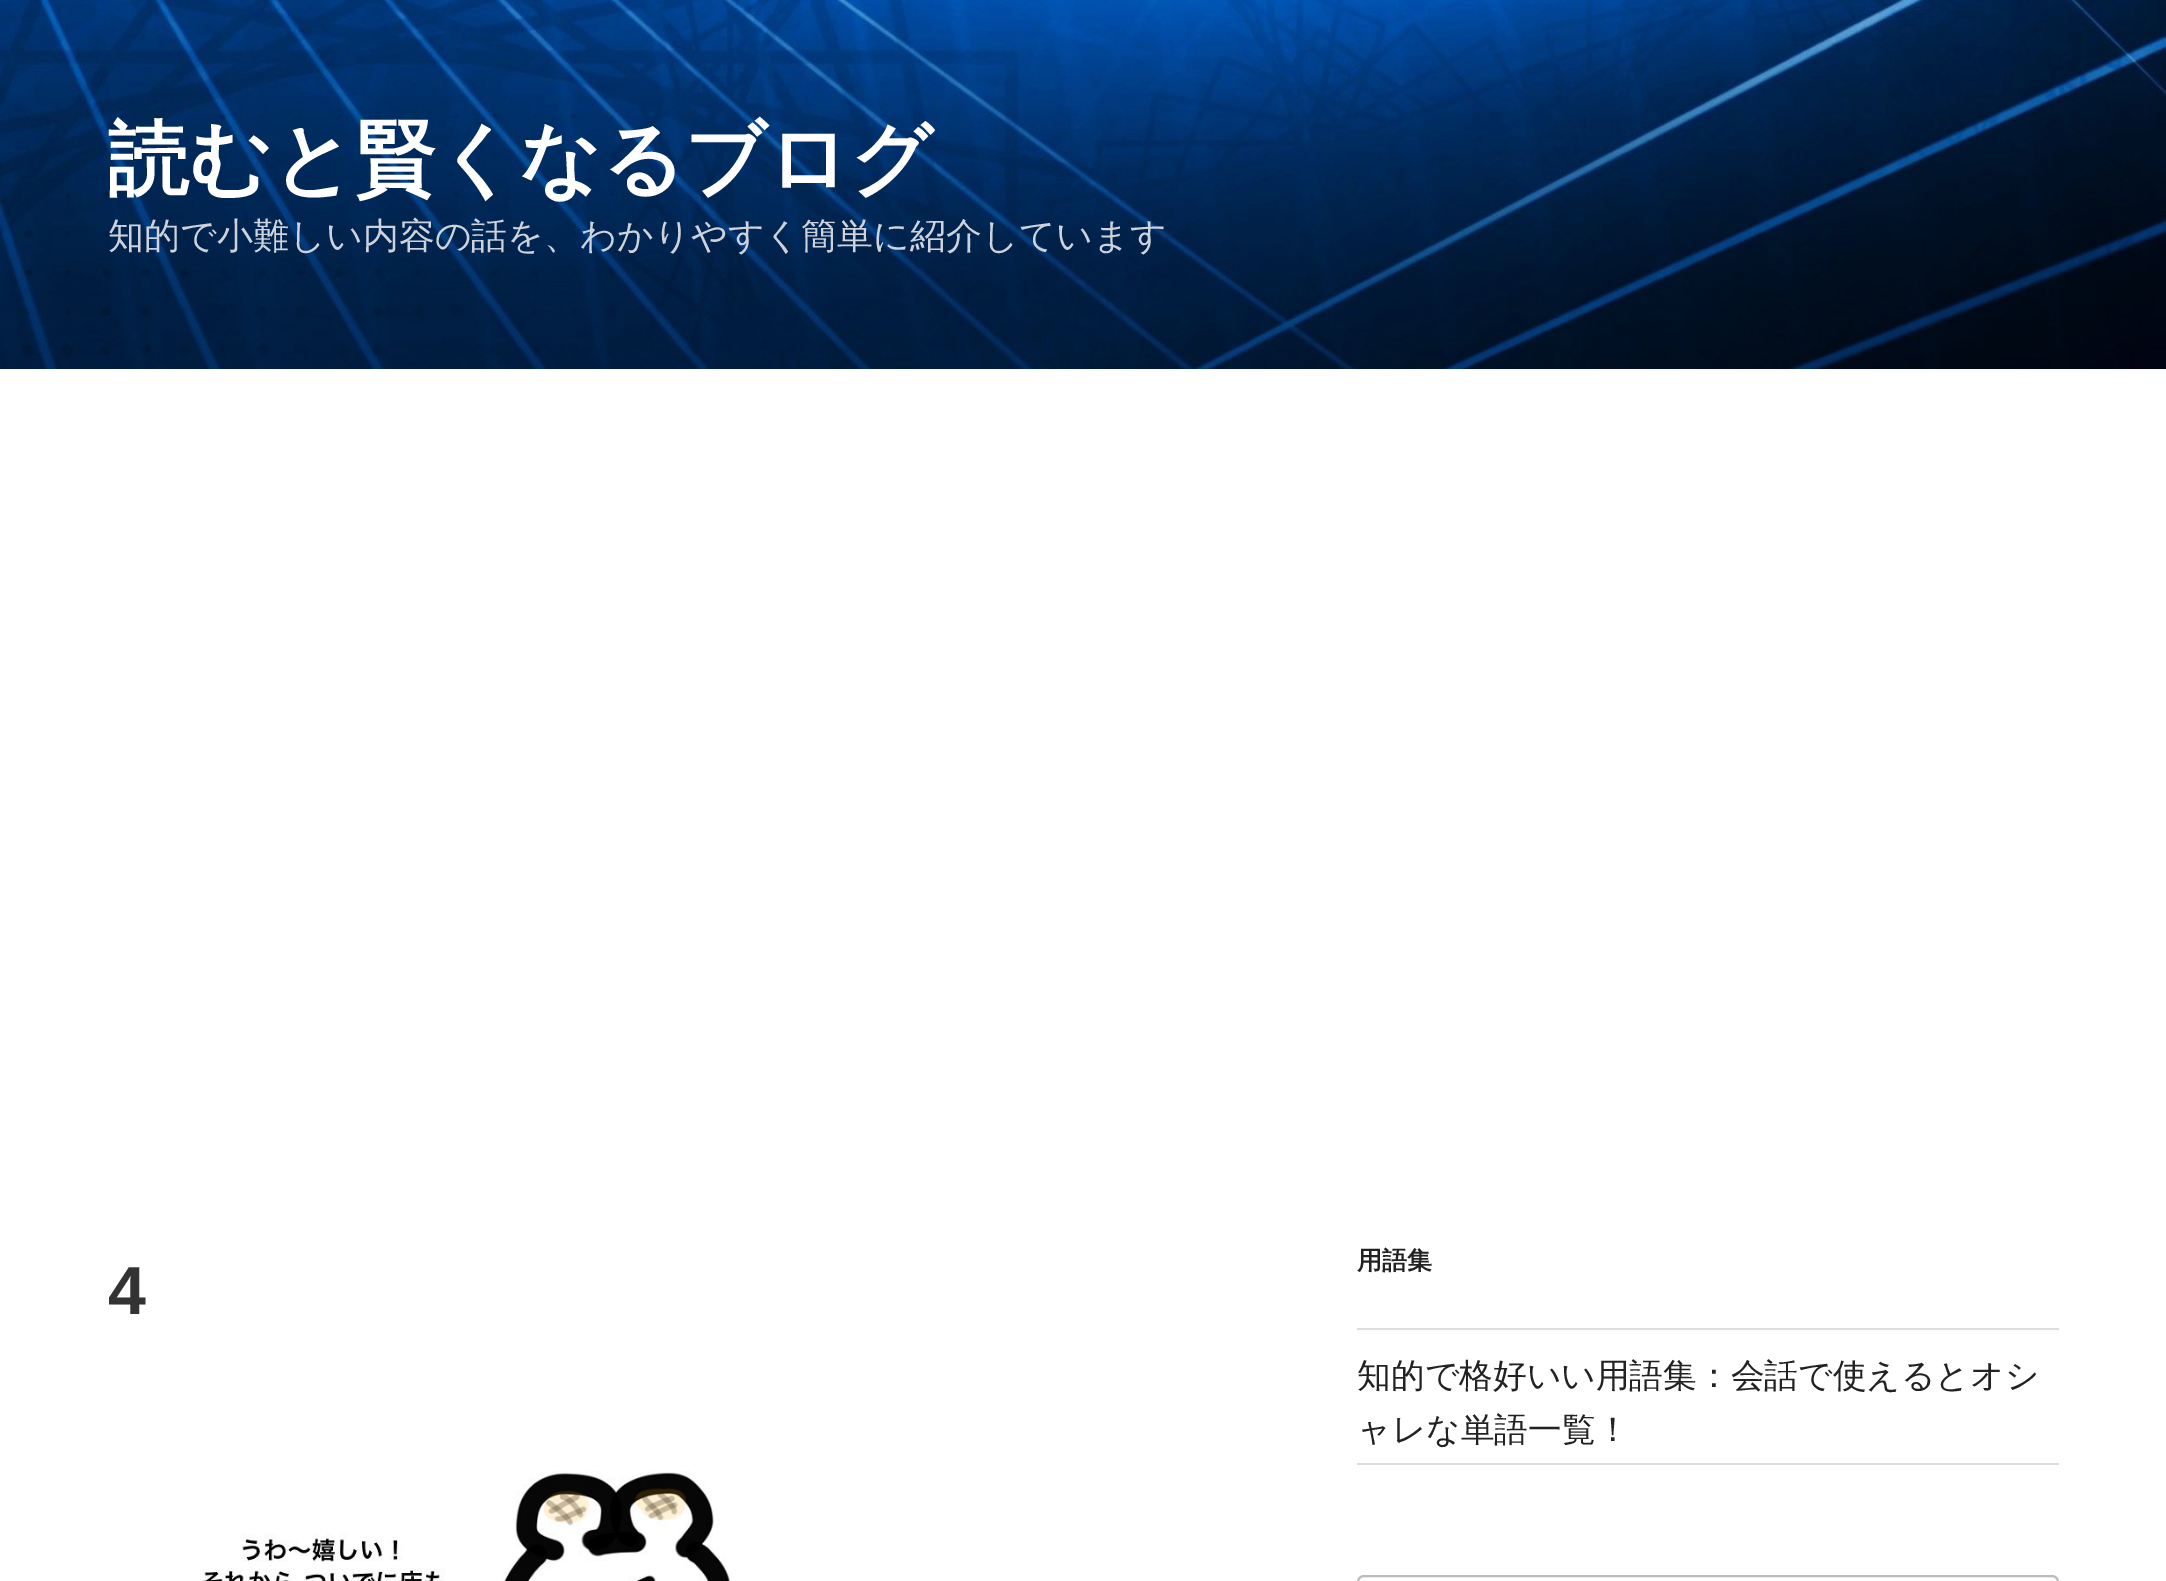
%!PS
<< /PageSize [2166 1581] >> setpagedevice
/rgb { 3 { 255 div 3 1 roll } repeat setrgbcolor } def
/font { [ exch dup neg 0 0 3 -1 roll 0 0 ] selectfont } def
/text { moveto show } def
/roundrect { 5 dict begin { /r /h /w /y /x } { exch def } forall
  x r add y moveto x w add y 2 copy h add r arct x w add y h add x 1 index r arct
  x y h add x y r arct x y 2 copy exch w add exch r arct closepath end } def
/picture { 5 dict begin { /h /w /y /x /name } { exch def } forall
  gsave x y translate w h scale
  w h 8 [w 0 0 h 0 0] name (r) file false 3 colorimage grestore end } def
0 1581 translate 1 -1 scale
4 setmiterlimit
255 255 255 rgb
0 0 2166 1581 rectfill
250 250 250 rgb
0 369 2166 2 rectfill
(img_01.rgb) 0 0 2166 369 picture
(img_02.rgb) 200 1471 532 110 picture
221 221 221 rgb
1357 1328 702 2 rectfill
1357 1463 702 2 rectfill
187 187 187 rgb
2 setlinewidth
1358 1576 700 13 6 roundrect stroke
/WenQuanYiZenHei-Bold 81 font
255 255 255 rgb
(読むと賢くなるブログ) 108 187 text
/WenQuanYiZenHei-Medium 36 font
204 211 220 rgb
(知的で小難しい内容の話を、わかりやすく簡単に紹介しています) 108 248 text
/LiberationSans-Bold 68 font
51 51 51 rgb
(4) 108 1314 text
/WenQuanYiZenHei-Bold 25 font
34 34 34 rgb
(用語集) 1357 1269 text
/WenQuanYiZenHei-Medium 33.75 font
(知的で格好いい用語集：会話で使えるとオシ) 1357 1387 text
(ャレな単語一覧！) 1357 1441 text
showpage
